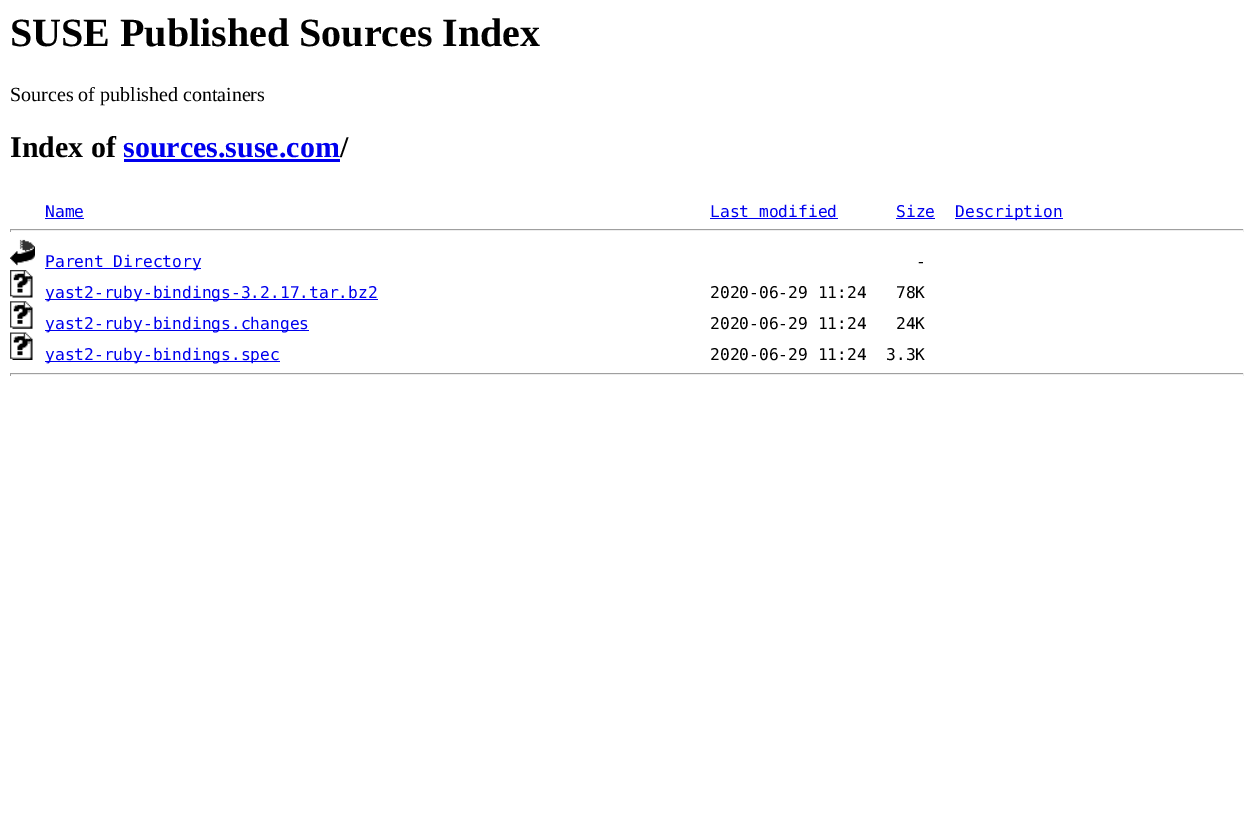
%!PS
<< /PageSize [1253 826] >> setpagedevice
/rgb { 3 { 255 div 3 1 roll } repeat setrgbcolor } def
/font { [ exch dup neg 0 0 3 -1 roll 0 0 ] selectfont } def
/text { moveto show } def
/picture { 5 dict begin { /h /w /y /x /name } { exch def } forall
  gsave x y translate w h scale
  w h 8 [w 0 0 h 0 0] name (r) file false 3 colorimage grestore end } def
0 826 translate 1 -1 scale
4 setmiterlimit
255 255 255 rgb
0 0 1253 826 rectfill
0 0 238 rgb
124 159 216 3 rectfill
45 218 39 1 rectfill
710 218 128 1 rectfill
896 218 39 1 rectfill
955 218 108 1 rectfill
159 159 159 rgb
10 229 1234 1 rectfill
238 238 238 rgb
1243 229 1 3 rectfill
10 230 1234 1 rectfill
159 159 159 rgb
10 229 1 3 rectfill
(img_01.rgb) 10 239 25 27 picture
0 0 238 rgb
45 268 156 1 rectfill
(img_02.rgb) 10 270 23 28 picture
45 299 333 1 rectfill
(img_03.rgb) 10 301 23 28 picture
45 330 264 1 rectfill
(img_04.rgb) 10 332 23 28 picture
45 361 235 1 rectfill
159 159 159 rgb
10 373 1234 1 rectfill
238 238 238 rgb
1243 373 1 3 rectfill
10 374 1234 1 rectfill
159 159 159 rgb
10 373 1 3 rectfill
/LiberationSerif-Bold 40 font
0 0 0 rgb
(SUSE Published Sources Index) 10 46 text
/LiberationSerif-Regular 20 font
(Sources of published containers) 10 101 text
/LiberationSerif-Bold 30 font
(Index of) 10 157 text
0 0 238 rgb
(sources.suse.com) 123 157 text
0 0 0 rgb
(/) 340 157 text
/DejaVuSansMono-Regular 16.25 font
0 0 238 rgb
(Name) 45 217 text
(Last modified) 710 217 text
(Size) 896 217 text
(Description) 955 217 text
(Parent Directory) 45 267 text
0 0 0 rgb
(-) 916 267 text
0 0 238 rgb
(yast2-ruby-bindings-3.2.17.tar.bz2) 45 298 text
0 0 0 rgb
(2020-06-29 11:24   78K) 710 298 text
0 0 238 rgb
(yast2-ruby-bindings.changes) 45 329 text
0 0 0 rgb
(2020-06-29 11:24   24K) 710 329 text
0 0 238 rgb
(yast2-ruby-bindings.spec) 45 360 text
0 0 0 rgb
(2020-06-29 11:24  3.3K) 710 360 text
showpage
